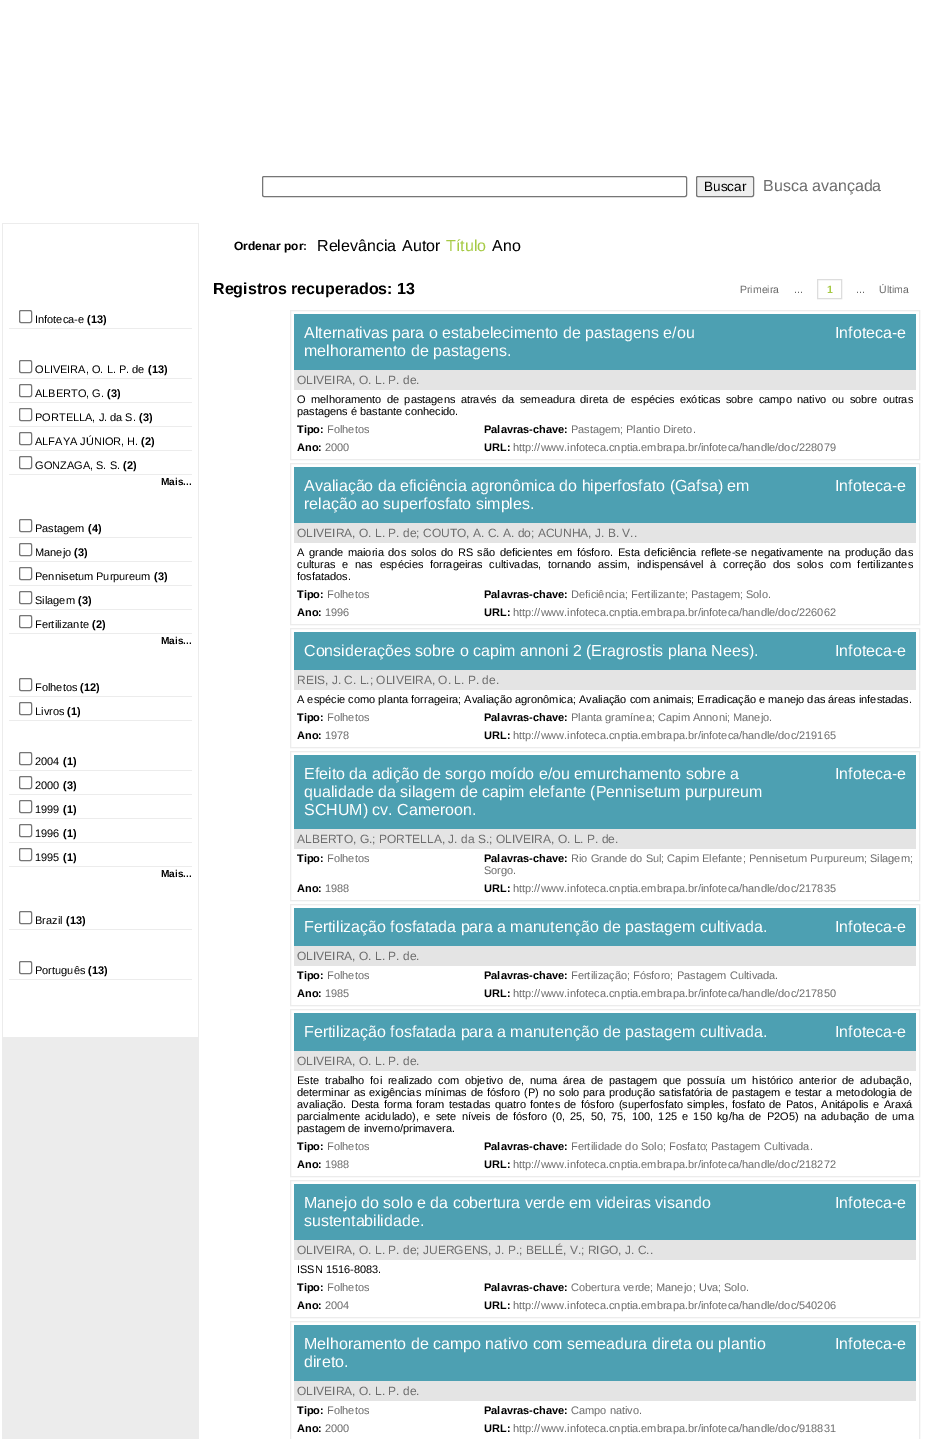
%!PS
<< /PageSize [928 1439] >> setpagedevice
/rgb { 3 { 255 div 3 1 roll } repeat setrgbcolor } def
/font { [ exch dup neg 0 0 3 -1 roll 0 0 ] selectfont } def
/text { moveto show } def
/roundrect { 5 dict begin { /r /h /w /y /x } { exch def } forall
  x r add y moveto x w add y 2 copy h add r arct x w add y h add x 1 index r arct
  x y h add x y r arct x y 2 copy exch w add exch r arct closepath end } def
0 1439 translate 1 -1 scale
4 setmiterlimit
255 255 255 rgb
0 0 928 1439 rectfill
118 118 118 rgb
262.5 176.5 424 20 1.5 roundrect stroke
239 239 239 rgb
696.5 176.5 57 20 1.5 roundrect gsave fill grestore
118 118 118 rgb
stroke
236 236 236 rgb
2 223 197 1216 rectfill
255 255 255 rgb
3 224 195 813 rectfill
236 236 236 rgb
9 328 183 1 rectfill
118 118 118 rgb
19.5 310.5 12 12 1.5 roundrect stroke
236 236 236 rgb
9 378 183 1 rectfill
118 118 118 rgb
19.5 360.5 12 12 1.5 roundrect stroke
236 236 236 rgb
9 402 183 1 rectfill
118 118 118 rgb
19.5 384.5 12 12 1.5 roundrect stroke
236 236 236 rgb
9 426 183 1 rectfill
118 118 118 rgb
19.5 408.5 12 12 1.5 roundrect stroke
236 236 236 rgb
9 450 183 1 rectfill
118 118 118 rgb
19.5 432.5 12 12 1.5 roundrect stroke
236 236 236 rgb
9 474 183 1 rectfill
118 118 118 rgb
19.5 456.5 12 12 1.5 roundrect stroke
236 236 236 rgb
9 537 183 1 rectfill
118 118 118 rgb
19.5 519.5 12 12 1.5 roundrect stroke
236 236 236 rgb
9 561 183 1 rectfill
118 118 118 rgb
19.5 543.5 12 12 1.5 roundrect stroke
236 236 236 rgb
9 585 183 1 rectfill
118 118 118 rgb
19.5 567.5 12 12 1.5 roundrect stroke
236 236 236 rgb
9 609 183 1 rectfill
118 118 118 rgb
19.5 591.5 12 12 1.5 roundrect stroke
236 236 236 rgb
9 633 183 1 rectfill
118 118 118 rgb
19.5 615.5 12 12 1.5 roundrect stroke
236 236 236 rgb
9 696 183 1 rectfill
118 118 118 rgb
19.5 678.5 12 12 1.5 roundrect stroke
236 236 236 rgb
9 720 183 1 rectfill
118 118 118 rgb
19.5 702.5 12 12 1.5 roundrect stroke
236 236 236 rgb
9 770 183 1 rectfill
118 118 118 rgb
19.5 752.5 12 12 1.5 roundrect stroke
236 236 236 rgb
9 794 183 1 rectfill
118 118 118 rgb
19.5 776.5 12 12 1.5 roundrect stroke
236 236 236 rgb
9 818 183 1 rectfill
118 118 118 rgb
19.5 800.5 12 12 1.5 roundrect stroke
236 236 236 rgb
9 842 183 1 rectfill
118 118 118 rgb
19.5 824.5 12 12 1.5 roundrect stroke
236 236 236 rgb
9 866 183 1 rectfill
118 118 118 rgb
19.5 848.5 12 12 1.5 roundrect stroke
236 236 236 rgb
9 929 183 1 rectfill
118 118 118 rgb
19.5 911.5 12 12 1.5 roundrect stroke
236 236 236 rgb
9 979 183 1 rectfill
118 118 118 rgb
19.5 961.5 12 12 1.5 roundrect stroke
221 221 221 rgb
817.5 279.5 24 19 rectstroke
236 236 236 rgb
290.5 310.5 629 149 rectstroke
77 160 178 rgb
294 314 622 56 rectfill
228 228 228 rgb
294 370 622 20 rectfill
236 236 236 rgb
290.5 463.5 629 161 rectstroke
77 160 178 rgb
294 467 622 56 rectfill
228 228 228 rgb
294 523 622 20 rectfill
236 236 236 rgb
290.5 628.5 629 119 rectstroke
77 160 178 rgb
294 632 622 38 rectfill
228 228 228 rgb
294 670 622 20 rectfill
236 236 236 rgb
290.5 751.5 629 149 rectstroke
77 160 178 rgb
294 755 622 74 rectfill
228 228 228 rgb
294 829 622 20 rectfill
236 236 236 rgb
290.5 904.5 629 101 rectstroke
77 160 178 rgb
294 908 622 38 rectfill
228 228 228 rgb
294 946 622 20 rectfill
236 236 236 rgb
290.5 1009.5 629 167 rectstroke
77 160 178 rgb
294 1013 622 38 rectfill
228 228 228 rgb
294 1051 622 20 rectfill
236 236 236 rgb
290.5 1180.5 629 137 rectstroke
77 160 178 rgb
294 1184 622 56 rectfill
228 228 228 rgb
294 1240 622 20 rectfill
236 236 236 rgb
290.5 1321.5 629 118 rectstroke
77 160 178 rgb
294 1325 622 56 rectfill
228 228 228 rgb
294 1381 622 20 rectfill
/LiberationSans-Regular 13.5 font
0 0 0 rgb
(Buscar) 704 191 text
/LiberationSans-Regular 16 font
108 108 108 rgb
(Busca avançada) 763 191 text
/LiberationSans-Regular 11 font
0 0 0 rgb
(Infoteca-e) 35 323 text
/LiberationSans-Bold 11 font
(\(13\)) 87 323 text
/LiberationSans-Regular 11 font
(OLIVEIRA, O. L. P. de) 35 373 text
/LiberationSans-Bold 11 font
(\(13\)) 148 373 text
/LiberationSans-Regular 11 font
(ALBERTO, G.) 35 397 text
/LiberationSans-Bold 11 font
(\(3\)) 107 397 text
/LiberationSans-Regular 11 font
(PORTELLA, J. da S.) 35 421 text
/LiberationSans-Bold 11 font
(\(3\)) 139 421 text
/LiberationSans-Regular 11 font
(ALFAYA JÚNIOR, H.) 35 445 text
/LiberationSans-Bold 11 font
(\(2\)) 141 445 text
/LiberationSans-Regular 11 font
(GONZAGA, S. S.) 35 469 text
/LiberationSans-Bold 11 font
(\(2\)) 123 469 text
/LiberationSans-Bold 10 font
(Mais...) 161 485 text
/LiberationSans-Regular 11 font
(Pastagem) 35 532 text
/LiberationSans-Bold 11 font
(\(4\)) 88 532 text
/LiberationSans-Regular 11 font
(Manejo) 35 556 text
/LiberationSans-Bold 11 font
(\(3\)) 74 556 text
/LiberationSans-Regular 11 font
(Pennisetum Purpureum) 35 580 text
/LiberationSans-Bold 11 font
(\(3\)) 154 580 text
/LiberationSans-Regular 11 font
(Silagem) 35 604 text
/LiberationSans-Bold 11 font
(\(3\)) 78 604 text
/LiberationSans-Regular 11 font
(Fertilizante) 35 628 text
/LiberationSans-Bold 11 font
(\(2\)) 92 628 text
/LiberationSans-Bold 10 font
(Mais...) 161 644 text
/LiberationSans-Regular 11 font
(Folhetos) 35 691 text
/LiberationSans-Bold 11 font
(\(12\)) 80 691 text
/LiberationSans-Regular 11 font
(Livros) 35 715 text
/LiberationSans-Bold 11 font
(\(1\)) 67 715 text
/LiberationSans-Regular 11 font
(2004) 35 765 text
/LiberationSans-Bold 11 font
(\(1\)) 63 765 text
/LiberationSans-Regular 11 font
(2000) 35 789 text
/LiberationSans-Bold 11 font
(\(3\)) 63 789 text
/LiberationSans-Regular 11 font
(1999) 35 813 text
/LiberationSans-Bold 11 font
(\(1\)) 63 813 text
/LiberationSans-Regular 11 font
(1996) 35 837 text
/LiberationSans-Bold 11 font
(\(1\)) 63 837 text
/LiberationSans-Regular 11 font
(1995) 35 861 text
/LiberationSans-Bold 11 font
(\(1\)) 63 861 text
/LiberationSans-Bold 10 font
(Mais...) 161 877 text
/LiberationSans-Regular 11 font
(Brazil) 35 924 text
/LiberationSans-Bold 11 font
(\(13\)) 66 924 text
/LiberationSans-Regular 11 font
(Português) 35 974 text
/LiberationSans-Bold 11 font
(\(13\)) 88 974 text
/LiberationSans-Bold 12 font
(Ordenar por:) 234 250 text
/LiberationSans-Regular 16 font
(Relevância) 317 251 text
(Autor) 402 251 text
166 202 68 rgb
(Título) 446 251 text
0 0 0 rgb
(Ano) 492 251 text
/LiberationSans-Bold 16 font
(Registros recuperados: 13) 213 294 text
/LiberationSans-Regular 10.5 font
102 102 102 rgb
(Primeira) 740 293 text
(...) 794 293 text
/LiberationSans-Bold 10.5 font
166 202 68 rgb
(1) 827 293 text
/LiberationSans-Regular 10.5 font
102 102 102 rgb
(...) 856 293 text
(Última) 879 293 text
/LiberationSans-Regular 16 font
255 255 255 rgb
(Alternativas para o estabelecimento de pastagens e/ou) 304 338 text
(melhoramento de pastagens.) 304 356 text
(Infoteca-e) 835 338 text
/LiberationSans-Regular 12 font
108 108 108 rgb
(OLIVEIRA, O. L. P. de.) 297 384 text
/LiberationSans-Regular 11 font
0 0 0 rgb
297 403 moveto 2.4 0 32 (O melhoramento de pastagens através da semeadura direta de espécies exóticas sobre campo nativo ou sobre outras) widthshow
(pastagens é bastante conhecido.) 297 415 text
/LiberationSans-Bold 11 font
(Tipo:) 297 433 text
/LiberationSans-Regular 11 font
108 108 108 rgb
(Folhetos) 327 433 text
/LiberationSans-Bold 11 font
0 0 0 rgb
(Palavras-chave:) 484 433 text
/LiberationSans-Regular 11 font
108 108 108 rgb
(Pastagem) 571 433 text
102 102 102 rgb
(;) 620 433 text
108 108 108 rgb
(Plantio Direto) 626 433 text
102 102 102 rgb
(.) 693 433 text
/LiberationSans-Bold 11 font
0 0 0 rgb
(Ano:) 297 451 text
/LiberationSans-Regular 11 font
108 108 108 rgb
(2000) 325 451 text
/LiberationSans-Bold 11 font
0 0 0 rgb
(URL:) 484 451 text
/LiberationSans-Regular 11 font
108 108 108 rgb
(http://www.infoteca.cnptia.embrapa.br/infoteca/handle/doc/228079) 513 451 text
/LiberationSans-Regular 16 font
255 255 255 rgb
(Avaliação da eficiência agronômica do hiperfosfato \(Gafsa\) em) 304 491 text
(relação ao superfosfato simples.) 304 509 text
(Infoteca-e) 835 491 text
/LiberationSans-Regular 12 font
108 108 108 rgb
(OLIVEIRA, O. L. P. de; COUTO, A. C. A. do; ACUNHA, J. B. V..) 297 537 text
/LiberationSans-Regular 11 font
0 0 0 rgb
297 556 moveto 1.5 0 32 (A grande maioria dos solos do RS são deficientes em fósforo. Esta deficiência reflete-se negativamente na produção das) widthshow
297 568 moveto 3.75 0 32 (culturas e nas espécies forrageiras cultivadas, tornando assim, indispensável à correção dos solos com fertilizantes) widthshow
(fosfatados.) 297 580 text
/LiberationSans-Bold 11 font
(Tipo:) 297 598 text
/LiberationSans-Regular 11 font
108 108 108 rgb
(Folhetos) 327 598 text
/LiberationSans-Bold 11 font
0 0 0 rgb
(Palavras-chave:) 484 598 text
/LiberationSans-Regular 11 font
108 108 108 rgb
(Deficiência) 571 598 text
102 102 102 rgb
(;) 625 598 text
108 108 108 rgb
(Fertilizante) 631 598 text
102 102 102 rgb
(;) 685 598 text
108 108 108 rgb
(Pastagem) 691 598 text
102 102 102 rgb
(;) 740 598 text
108 108 108 rgb
(Solo) 746 598 text
102 102 102 rgb
(.) 768 598 text
/LiberationSans-Bold 11 font
0 0 0 rgb
(Ano:) 297 616 text
/LiberationSans-Regular 11 font
108 108 108 rgb
(1996) 325 616 text
/LiberationSans-Bold 11 font
0 0 0 rgb
(URL:) 484 616 text
/LiberationSans-Regular 11 font
108 108 108 rgb
(http://www.infoteca.cnptia.embrapa.br/infoteca/handle/doc/226062) 513 616 text
/LiberationSans-Regular 16 font
255 255 255 rgb
(Considerações sobre o capim annoni 2 \(Eragrostis plana Nees\).) 304 656 text
(Infoteca-e) 835 656 text
/LiberationSans-Regular 12 font
108 108 108 rgb
(REIS, J. C. L.; OLIVEIRA, O. L. P. de.) 297 684 text
/LiberationSans-Regular 11 font
0 0 0 rgb
(A espécie como planta forrageira; Avaliação agronômica; Avaliação com animais; Erradicação e manejo das áreas infestadas.) 297 703 text
/LiberationSans-Bold 11 font
(Tipo:) 297 721 text
/LiberationSans-Regular 11 font
108 108 108 rgb
(Folhetos) 327 721 text
/LiberationSans-Bold 11 font
0 0 0 rgb
(Palavras-chave:) 484 721 text
/LiberationSans-Regular 11 font
108 108 108 rgb
(Planta gramínea) 571 721 text
102 102 102 rgb
(;) 652 721 text
108 108 108 rgb
(Capim Annoni) 658 721 text
102 102 102 rgb
(;) 727 721 text
108 108 108 rgb
(Manejo) 733 721 text
102 102 102 rgb
(.) 769 721 text
/LiberationSans-Bold 11 font
0 0 0 rgb
(Ano:) 297 739 text
/LiberationSans-Regular 11 font
108 108 108 rgb
(1978) 325 739 text
/LiberationSans-Bold 11 font
0 0 0 rgb
(URL:) 484 739 text
/LiberationSans-Regular 11 font
108 108 108 rgb
(http://www.infoteca.cnptia.embrapa.br/infoteca/handle/doc/219165) 513 739 text
/LiberationSans-Regular 16 font
255 255 255 rgb
(Efeito da adição de sorgo moído e/ou emurchamento sobre a) 304 779 text
(qualidade da silagem de capim elefante \(Pennisetum purpureum) 304 797 text
(SCHUM\) cv. Cameroon.) 304 815 text
(Infoteca-e) 835 779 text
/LiberationSans-Regular 12 font
108 108 108 rgb
(ALBERTO, G.; PORTELLA, J. da S.; OLIVEIRA, O. L. P. de.) 297 843 text
/LiberationSans-Bold 11 font
0 0 0 rgb
(Tipo:) 297 862 text
/LiberationSans-Regular 11 font
108 108 108 rgb
(Folhetos) 327 862 text
/LiberationSans-Bold 11 font
0 0 0 rgb
(Palavras-chave:) 484 862 text
/LiberationSans-Regular 11 font
108 108 108 rgb
(Rio Grande do Sul) 571 862 text
102 102 102 rgb
(;) 661 862 text
108 108 108 rgb
(Capim Elefante) 667 862 text
102 102 102 rgb
(;) 743 862 text
108 108 108 rgb
(Pennisetum Purpureum) 749 862 text
102 102 102 rgb
(;) 864 862 text
108 108 108 rgb
(Silagem) 870 862 text
102 102 102 rgb
(;) 910 862 text
108 108 108 rgb
(Sorgo) 484 874 text
102 102 102 rgb
(.) 513 874 text
/LiberationSans-Bold 11 font
0 0 0 rgb
(Ano:) 297 892 text
/LiberationSans-Regular 11 font
108 108 108 rgb
(1988) 325 892 text
/LiberationSans-Bold 11 font
0 0 0 rgb
(URL:) 484 892 text
/LiberationSans-Regular 11 font
108 108 108 rgb
(http://www.infoteca.cnptia.embrapa.br/infoteca/handle/doc/217835) 513 892 text
/LiberationSans-Regular 16 font
255 255 255 rgb
(Fertilização fosfatada para a manutenção de pastagem cultivada.) 304 932 text
(Infoteca-e) 835 932 text
/LiberationSans-Regular 12 font
108 108 108 rgb
(OLIVEIRA, O. L. P. de.) 297 960 text
/LiberationSans-Bold 11 font
0 0 0 rgb
(Tipo:) 297 979 text
/LiberationSans-Regular 11 font
108 108 108 rgb
(Folhetos) 327 979 text
/LiberationSans-Bold 11 font
0 0 0 rgb
(Palavras-chave:) 484 979 text
/LiberationSans-Regular 11 font
108 108 108 rgb
(Fertilização) 571 979 text
102 102 102 rgb
(;) 627 979 text
108 108 108 rgb
(Fósforo) 633 979 text
102 102 102 rgb
(;) 670 979 text
108 108 108 rgb
(Pastagem Cultivada) 677 979 text
102 102 102 rgb
(.) 775 979 text
/LiberationSans-Bold 11 font
0 0 0 rgb
(Ano:) 297 997 text
/LiberationSans-Regular 11 font
108 108 108 rgb
(1985) 325 997 text
/LiberationSans-Bold 11 font
0 0 0 rgb
(URL:) 484 997 text
/LiberationSans-Regular 11 font
108 108 108 rgb
(http://www.infoteca.cnptia.embrapa.br/infoteca/handle/doc/217850) 513 997 text
/LiberationSans-Regular 16 font
255 255 255 rgb
(Fertilização fosfatada para a manutenção de pastagem cultivada.) 304 1037 text
(Infoteca-e) 835 1037 text
/LiberationSans-Regular 12 font
108 108 108 rgb
(OLIVEIRA, O. L. P. de.) 297 1065 text
/LiberationSans-Regular 11 font
0 0 0 rgb
297 1084 moveto 2.75 0 32 (Este trabalho foi realizado com objetivo de, numa área de pastagem que possuía um histórico anterior de adubação,) widthshow
297 1096 moveto 0.9 0 32 (determinar as exigências mínimas de fósforo \(P\) no solo para produção satisfatória de pastagem e testar a metodologia de) widthshow
297 1108 moveto 1.25 0 32 (avaliação. Desta forma foram testadas quatro fontes de fósforo \(superfosfato simples, fosfato de Patos, Anitápolis e Araxá) widthshow
297 1120 moveto 2.2 0 32 (parcialmente acidulado\), e sete níveis de fósforo \(0, 25, 50, 75, 100, 125 e 150 kg/ha de P2O5\) na adubação de uma) widthshow
(pastagem de inverno/primavera.) 297 1132 text
/LiberationSans-Bold 11 font
(Tipo:) 297 1150 text
/LiberationSans-Regular 11 font
108 108 108 rgb
(Folhetos) 327 1150 text
/LiberationSans-Bold 11 font
0 0 0 rgb
(Palavras-chave:) 484 1150 text
/LiberationSans-Regular 11 font
108 108 108 rgb
(Fertilidade do Solo) 571 1150 text
102 102 102 rgb
(;) 663 1150 text
108 108 108 rgb
(Fosfato) 669 1150 text
102 102 102 rgb
(;) 705 1150 text
108 108 108 rgb
(Pastagem Cultivada) 711 1150 text
102 102 102 rgb
(.) 810 1150 text
/LiberationSans-Bold 11 font
0 0 0 rgb
(Ano:) 297 1168 text
/LiberationSans-Regular 11 font
108 108 108 rgb
(1988) 325 1168 text
/LiberationSans-Bold 11 font
0 0 0 rgb
(URL:) 484 1168 text
/LiberationSans-Regular 11 font
108 108 108 rgb
(http://www.infoteca.cnptia.embrapa.br/infoteca/handle/doc/218272) 513 1168 text
/LiberationSans-Regular 16 font
255 255 255 rgb
(Manejo do solo e da cobertura verde em videiras visando) 304 1208 text
(sustentabilidade.) 304 1226 text
(Infoteca-e) 835 1208 text
/LiberationSans-Regular 12 font
108 108 108 rgb
(OLIVEIRA, O. L. P. de; JUERGENS, J. P.; BELLÉ, V.; RIGO, J. C..) 297 1254 text
/LiberationSans-Regular 11 font
0 0 0 rgb
(ISSN 1516-8083.) 297 1273 text
/LiberationSans-Bold 11 font
(Tipo:) 297 1291 text
/LiberationSans-Regular 11 font
108 108 108 rgb
(Folhetos) 327 1291 text
/LiberationSans-Bold 11 font
0 0 0 rgb
(Palavras-chave:) 484 1291 text
/LiberationSans-Regular 11 font
108 108 108 rgb
(Cobertura verde) 571 1291 text
102 102 102 rgb
(;) 650 1291 text
108 108 108 rgb
(Manejo) 656 1291 text
102 102 102 rgb
(;) 693 1291 text
108 108 108 rgb
(Uva) 699 1291 text
102 102 102 rgb
(;) 718 1291 text
108 108 108 rgb
(Solo) 724 1291 text
102 102 102 rgb
(.) 746 1291 text
/LiberationSans-Bold 11 font
0 0 0 rgb
(Ano:) 297 1309 text
/LiberationSans-Regular 11 font
108 108 108 rgb
(2004) 325 1309 text
/LiberationSans-Bold 11 font
0 0 0 rgb
(URL:) 484 1309 text
/LiberationSans-Regular 11 font
108 108 108 rgb
(http://www.infoteca.cnptia.embrapa.br/infoteca/handle/doc/540206) 513 1309 text
/LiberationSans-Regular 16 font
255 255 255 rgb
(Melhoramento de campo nativo com semeadura direta ou plantio) 304 1349 text
(direto.) 304 1367 text
(Infoteca-e) 835 1349 text
/LiberationSans-Regular 12 font
108 108 108 rgb
(OLIVEIRA, O. L. P. de.) 297 1395 text
/LiberationSans-Bold 11 font
0 0 0 rgb
(Tipo:) 297 1414 text
/LiberationSans-Regular 11 font
108 108 108 rgb
(Folhetos) 327 1414 text
/LiberationSans-Bold 11 font
0 0 0 rgb
(Palavras-chave:) 484 1414 text
/LiberationSans-Regular 11 font
108 108 108 rgb
(Campo nativo) 571 1414 text
102 102 102 rgb
(.) 639 1414 text
/LiberationSans-Bold 11 font
0 0 0 rgb
(Ano:) 297 1432 text
/LiberationSans-Regular 11 font
108 108 108 rgb
(2000) 325 1432 text
/LiberationSans-Bold 11 font
0 0 0 rgb
(URL:) 484 1432 text
/LiberationSans-Regular 11 font
108 108 108 rgb
(http://www.infoteca.cnptia.embrapa.br/infoteca/handle/doc/918831) 513 1432 text
showpage
